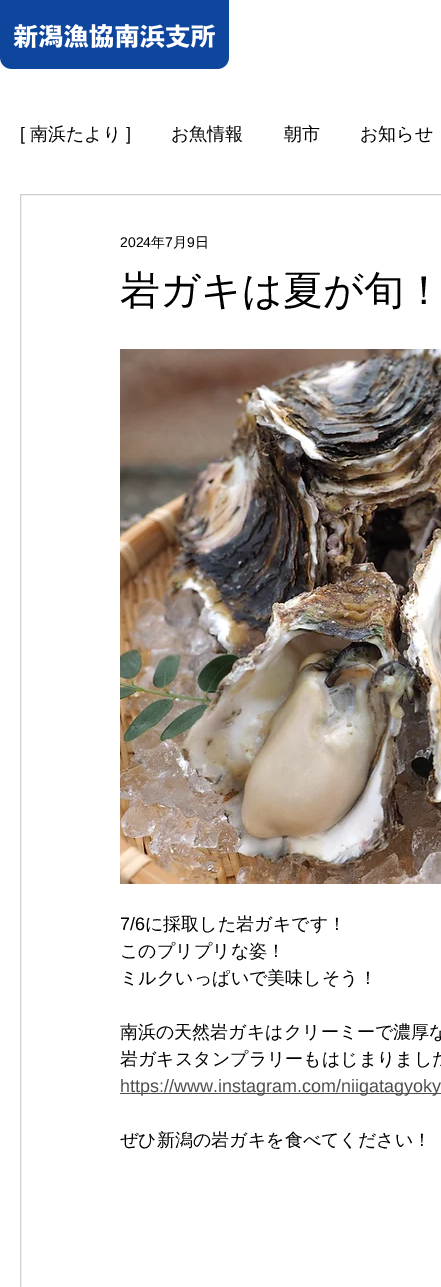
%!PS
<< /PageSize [441 1287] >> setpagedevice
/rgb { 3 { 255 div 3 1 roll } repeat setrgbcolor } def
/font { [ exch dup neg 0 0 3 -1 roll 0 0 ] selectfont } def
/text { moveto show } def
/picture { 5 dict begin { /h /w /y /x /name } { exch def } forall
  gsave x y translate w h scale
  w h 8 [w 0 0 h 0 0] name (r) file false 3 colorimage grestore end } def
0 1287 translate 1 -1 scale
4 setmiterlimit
255 255 255 rgb
0 0 441 1287 rectfill
(img_01.rgb) 0 0 229 69 picture
207 207 207 rgb
20.5 194.5 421 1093 rectstroke
(img_02.rgb) 120 349 321 535 picture
77 77 77 rgb
120 1093 321 1 rectfill
/LiberationSans-Regular 18 font
0 0 0 rgb
([) 20 140 text
/WenQuanYiZenHei-Medium 18 font
(南浜たより) 30 140 text
/LiberationSans-Regular 18 font
(]) 126 140 text
/WenQuanYiZenHei-Medium 18 font
(お魚情報) 171 140 text
(朝市) 284 140 text
(お知らせ) 360 140 text
/LiberationSans-Regular 14 font
(2024) 120 247 text
/WenQuanYiZenHei-Medium 14 font
(年) 151 247 text
/LiberationSans-Regular 14 font
(7) 165 247 text
/WenQuanYiZenHei-Medium 14 font
(月) 173 247 text
/LiberationSans-Regular 14 font
(9) 187 247 text
/WenQuanYiZenHei-Medium 14 font
(日) 195 247 text
/WenQuanYiZenHei-Medium 40 font
(岩ガキは夏が旬！) 120 304 text
/LiberationSans-Regular 18 font
(7/6) 120 930 text
/WenQuanYiZenHei-Medium 18 font
(に採取した岩ガキです！) 145 930 text
(このプリプリな姿！) 120 957 text
(ミルクいっぱいで美味しそう！) 120 984 text
(南浜の天然岩ガキはクリーミーで濃厚な) 120 1038 text
(岩ガキスタンプラリーもはじまりました) 120 1065 text
/LiberationSans-Regular 18 font
77 77 77 rgb
(https://www.instagram.com/niigatagyoky) 120 1092 text
/WenQuanYiZenHei-Medium 18 font
0 0 0 rgb
(ぜひ新潟の岩ガキを食べてください！) 120 1146 text
showpage
